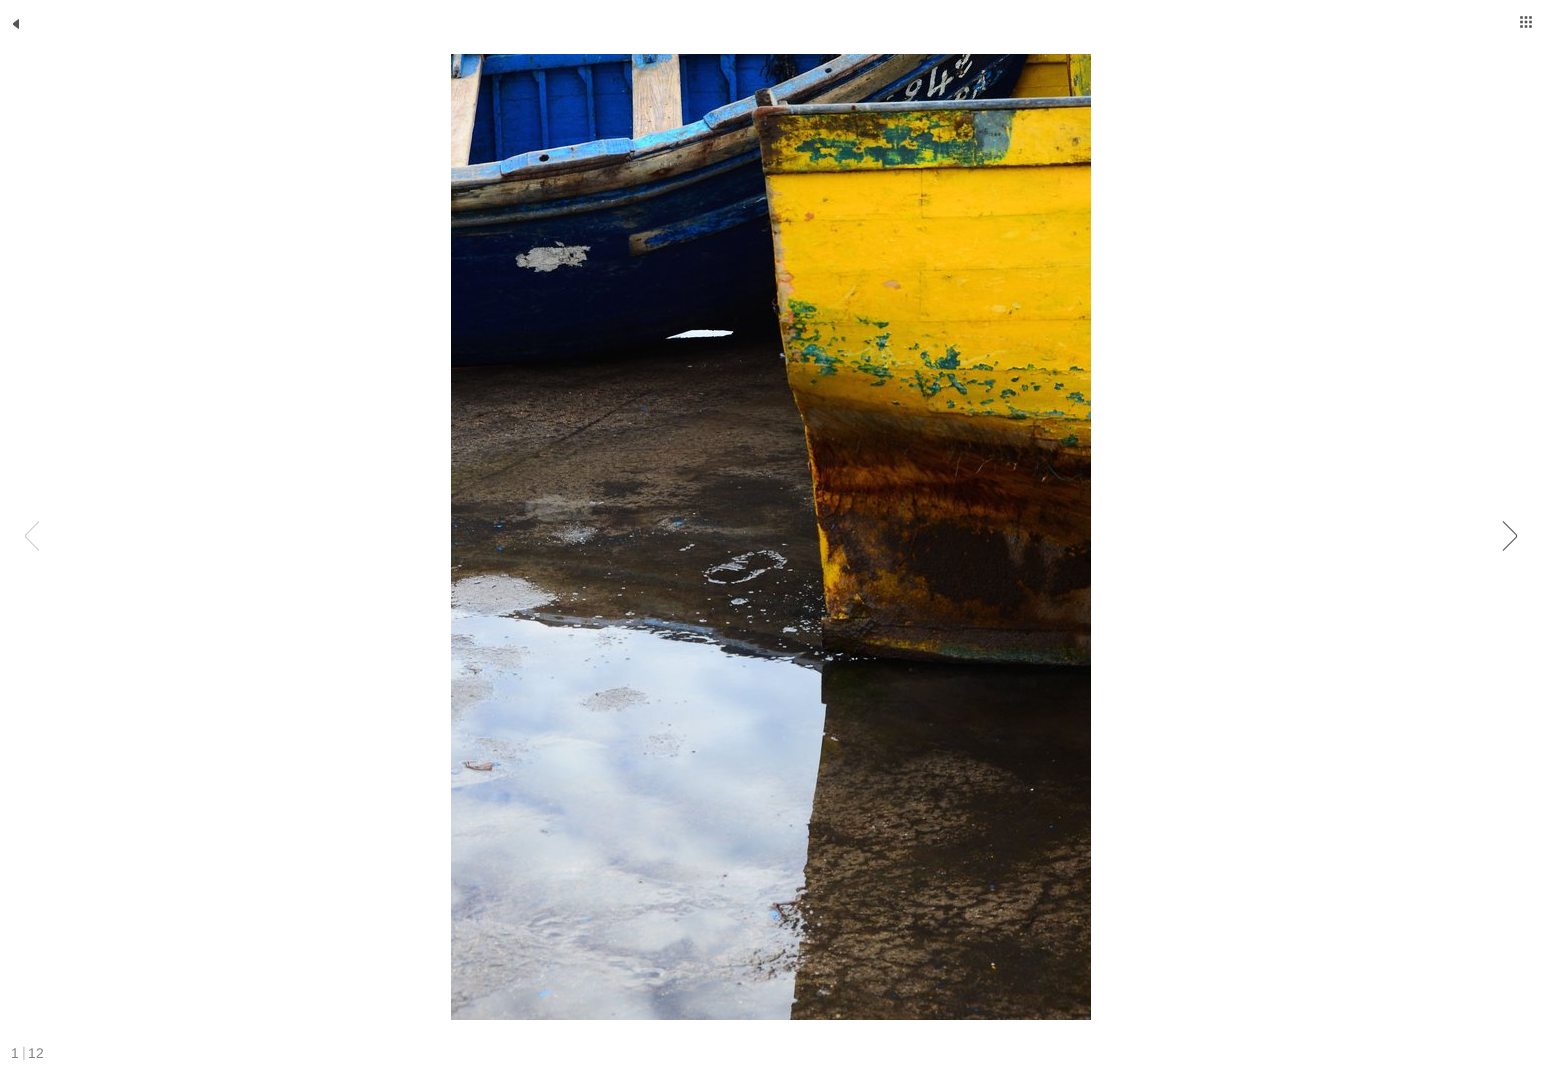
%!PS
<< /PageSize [1542 1074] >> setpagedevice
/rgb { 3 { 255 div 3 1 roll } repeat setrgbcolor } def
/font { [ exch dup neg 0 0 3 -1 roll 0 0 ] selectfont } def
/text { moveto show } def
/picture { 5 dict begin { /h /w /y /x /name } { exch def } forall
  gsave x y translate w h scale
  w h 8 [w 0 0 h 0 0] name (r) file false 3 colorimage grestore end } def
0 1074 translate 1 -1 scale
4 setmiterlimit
255 255 255 rgb
0 0 1542 1074 rectfill
85 85 85 rgb
19 29 moveto -8 -6 -8 -4 0 -10 rcurveto closepath fill
(img_01.rgb) 1520 16 12 12 picture
(img_02.rgb) 24 521 16 30 picture
(img_03.rgb) 451 54 640 966 picture
(img_04.rgb) 1502 521 16 30 picture
/LiberationSans-Regular 14 font
133 133 133 rgb
(1) 11 1058 text
194 194 194 rgb
(|) 22 1057 text
133 133 133 rgb
(12) 28 1058 text
showpage
